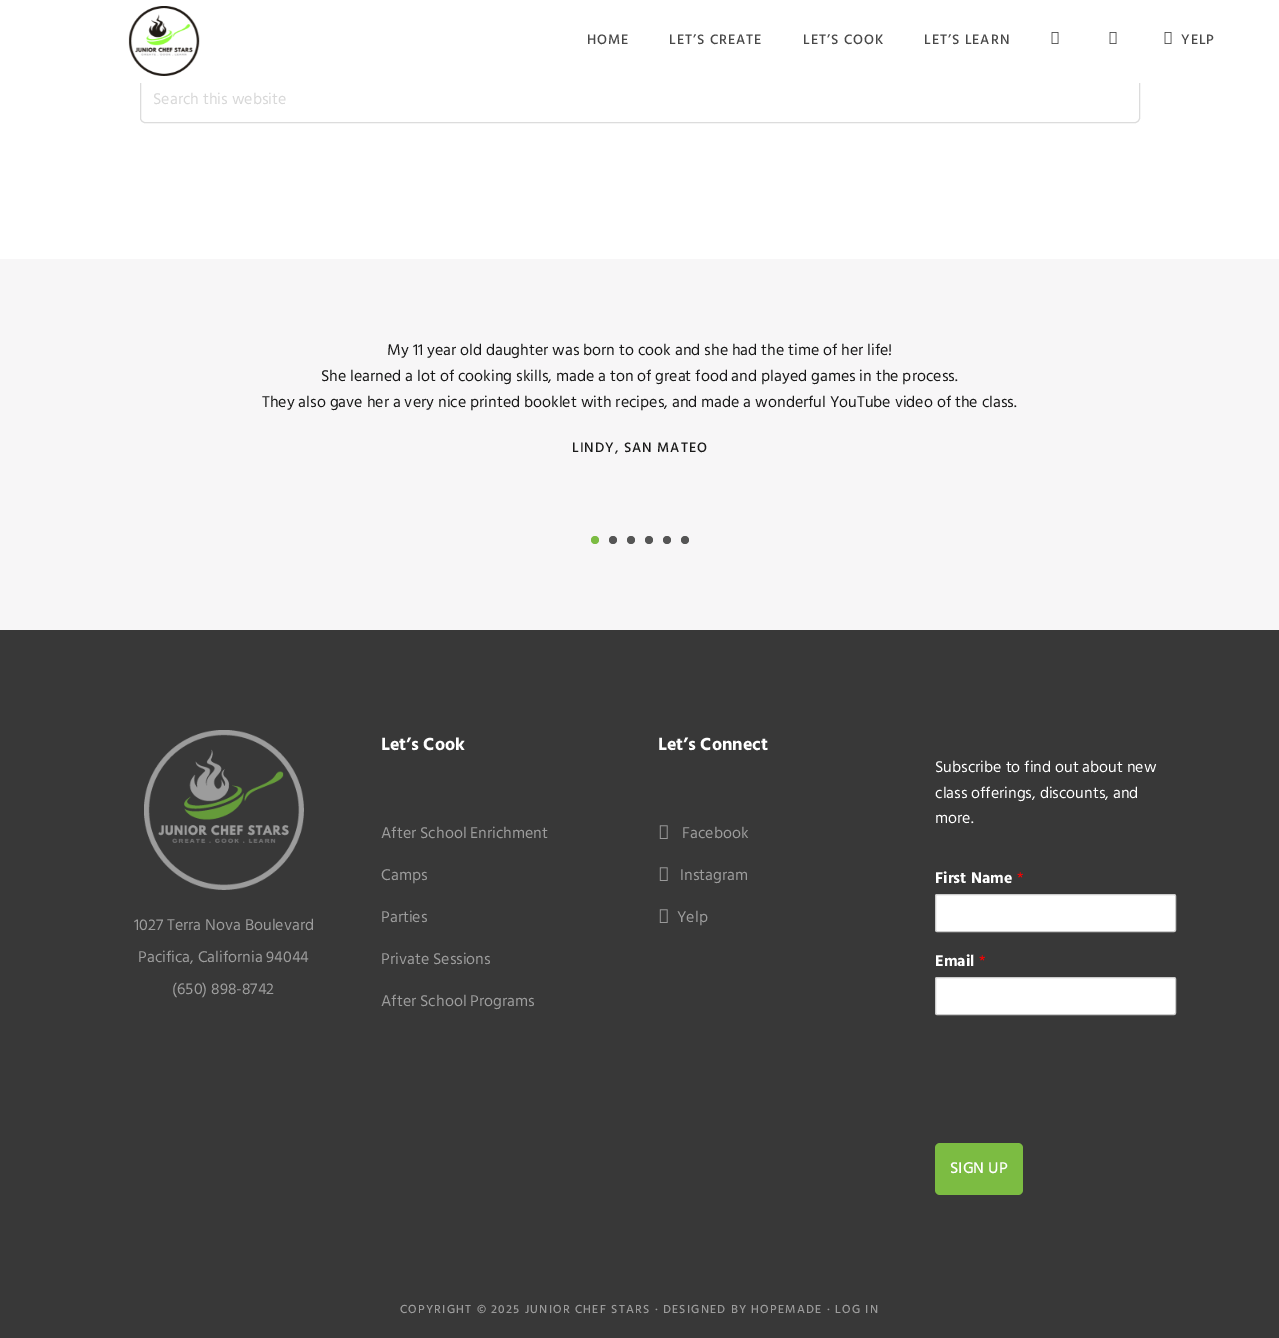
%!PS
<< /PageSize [1279 1338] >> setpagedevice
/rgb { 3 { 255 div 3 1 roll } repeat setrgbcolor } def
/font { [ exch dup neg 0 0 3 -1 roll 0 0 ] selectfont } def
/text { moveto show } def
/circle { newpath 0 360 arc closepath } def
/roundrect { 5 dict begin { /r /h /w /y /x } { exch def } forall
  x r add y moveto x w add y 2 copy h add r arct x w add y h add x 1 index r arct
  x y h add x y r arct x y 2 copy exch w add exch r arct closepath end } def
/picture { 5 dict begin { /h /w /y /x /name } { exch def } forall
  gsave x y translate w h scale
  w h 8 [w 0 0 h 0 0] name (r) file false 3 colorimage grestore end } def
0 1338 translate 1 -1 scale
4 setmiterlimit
56 56 56 rgb
0 0 1279 1338 rectfill
255 255 255 rgb
0 83 1279 176 rectfill
220 220 220 rgb
140.5 76.5 999 46 4.5 roundrect stroke
255 255 255 rgb
0 0 1279 83 rectfill
(img_01.rgb) 128 6 72 70 picture
(img_02.rgb) 1051 32 8 12 picture
(img_02.rgb) 1109 32 8 12 picture
(img_02.rgb) 1164 32 8 12 picture
247 246 247 rgb
0 259 1279 371 rectfill
124 188 66 rgb
595 540 4 circle fill
85 85 85 rgb
613 540 4 circle fill
631 540 4 circle fill
649 540 4 circle fill
667 540 4 circle fill
685 540 4 circle fill
(img_03.rgb) 144 730 160 160 picture
(img_04.rgb) 659 825 9 14 picture
(img_04.rgb) 659 867 9 14 picture
(img_04.rgb) 659 909 9 14 picture
255 255 255 rgb
935.5 894.5 240 37 1.5 roundrect gsave fill grestore
204 204 204 rgb
stroke
255 255 255 rgb
935.5 977.5 240 37 1.5 roundrect gsave fill grestore
204 204 204 rgb
stroke
124 188 66 rgb
935 1143 88 52 5 roundrect fill
/Hind-Medium 14 font
72 72 72 rgb
587 44 moveto 1 0 (HOME) ashow
669 44 moveto 1 0 (LET’S CREATE) ashow
803 44 moveto 1 0 (LET’S COOK) ashow
924 44 moveto 1 0 (LET’S LEARN) ashow
1181 44 moveto 1 0 (YELP) ashow
/Hind-Regular 16 font
216 216 216 rgb
(Search this website) 153 104 text
26 26 26 rgb
(My 11 year old daughter was born to cook and she had the time of her life!) 387 355 text
(She learned a lot of cooking skills, made a ton of great food and played games in the process.) 321 381 text
(They also gave her a very nice printed booklet with recipes, and made a wonderful YouTube video of the class.) 262 407 text
/Hind-Medium 14 font
572 452 moveto 1 0 (LINDY, SAN MATEO) ashow
/Hind-Regular 16 font
156 156 156 rgb
(1027 Terra Nova Boulevard) 134 930 text
(Pacifica, California 94044) 138 962 text
(\(650\) 898-8742) 172 994 text
/Hind-Bold 18 font
255 255 255 rgb
(Let’s Cook) 381 750 text
/Hind-Regular 16 font
156 156 156 rgb
(After School Enrichment) 381 838 text
(Camps) 381 880 text
(Parties) 381 922 text
(Private Sessions) 381 964 text
(After School Programs) 381 1006 text
/Hind-Bold 18 font
255 255 255 rgb
(Let’s Connect) 658 750 text
/Hind-Regular 16 font
156 156 156 rgb
(Facebook) 682 838 text
(Instagram) 680 880 text
(Yelp) 677 922 text
255 255 255 rgb
(Subscribe to find out about new) 935 772 text
(class offerings, discounts, and) 935 798 text
(more.) 935 823 text
/Hind-Bold 16 font
(First Name) 935 883 text
/Hind-Regular 16 font
255 0 0 rgb
(*) 1017 883 text
/Hind-Bold 16 font
255 255 255 rgb
(Email) 935 966 text
/Hind-Regular 16 font
255 0 0 rgb
(*) 979 966 text
/Hind-Medium 16 font
255 255 255 rgb
(SIGN UP) 950 1173 text
/Hind-Medium 12 font
156 156 156 rgb
400 1313 moveto 1.2 0 (COPYRIGHT © 2025 JUNIOR CHEF STARS · DESIGNED BY HOPEMADE · LOG IN) ashow
showpage
